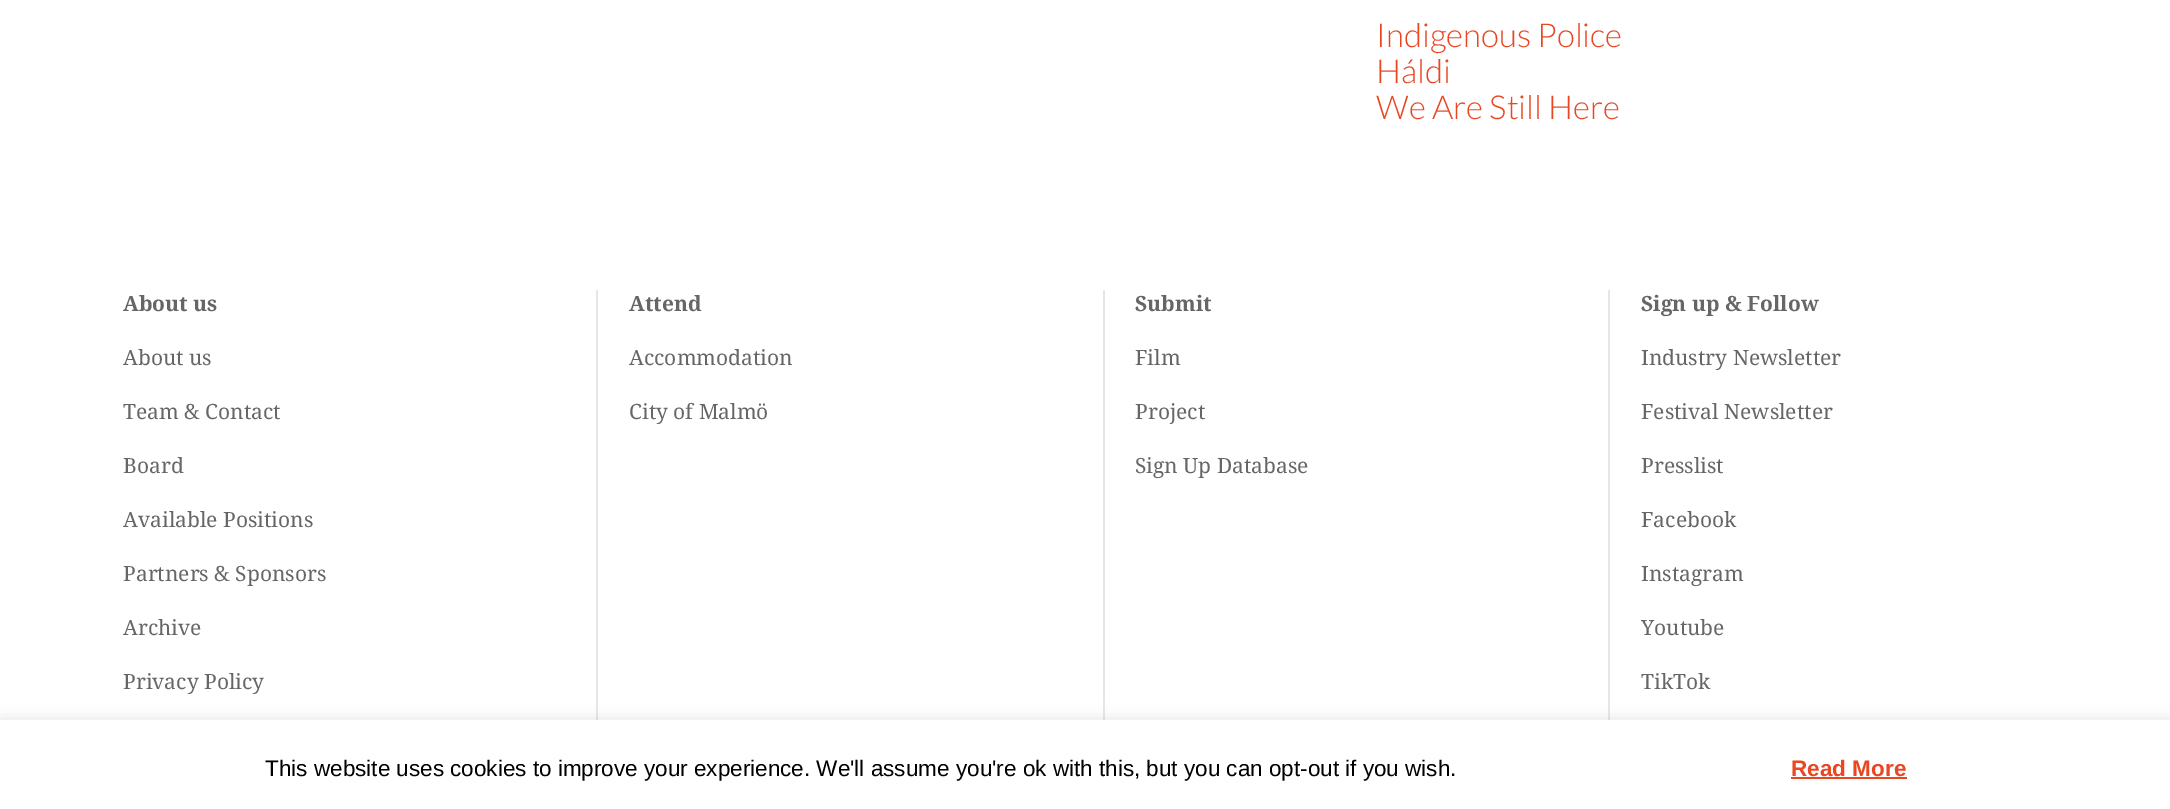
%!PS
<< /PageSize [2170 809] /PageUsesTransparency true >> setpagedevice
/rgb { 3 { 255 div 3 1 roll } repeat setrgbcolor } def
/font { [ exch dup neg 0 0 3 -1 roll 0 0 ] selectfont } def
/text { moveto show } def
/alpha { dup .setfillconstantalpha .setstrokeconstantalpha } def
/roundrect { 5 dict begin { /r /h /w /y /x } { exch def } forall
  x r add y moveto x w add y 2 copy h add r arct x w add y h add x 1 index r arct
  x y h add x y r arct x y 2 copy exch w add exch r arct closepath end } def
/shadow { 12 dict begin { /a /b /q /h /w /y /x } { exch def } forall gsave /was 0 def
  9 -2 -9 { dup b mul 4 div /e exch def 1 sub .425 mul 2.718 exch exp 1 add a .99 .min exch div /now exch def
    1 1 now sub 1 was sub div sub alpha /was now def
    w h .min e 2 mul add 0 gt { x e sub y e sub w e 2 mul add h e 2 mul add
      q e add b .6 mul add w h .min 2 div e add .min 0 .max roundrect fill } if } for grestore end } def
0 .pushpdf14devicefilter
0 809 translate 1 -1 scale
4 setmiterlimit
255 255 255 rgb
0 0 2170 809 rectfill
230 230 230 rgb
596 290 2 430 rectfill
1103 290 2 430 rectfill
1608 290 2 430 rectfill
172 171 171 rgb
0 719 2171 90 0 7.5 0.3 shadow
255 255 255 rgb
0 720 2170 89 rectfill
233 70 34 rgb
1791 777 116 2 rectfill
/Lato-Light 33 font
(Indigenous Police) 1376 47 text
(Háldi) 1376 83 text
(We Are Still Here) 1376 119 text
/DroidSerif-Bold 21 font
102 102 102 rgb
(About us) 123 311 text
/DroidSerif-Regular 21 font
(About us) 123 365 text
(Team & Contact) 123 419 text
(Board) 123 473 text
(Available Positions) 123 527 text
(Partners & Sponsors) 123 581 text
(Archive) 123 635 text
(Privacy Policy) 123 689 text
/DroidSerif-Bold 21 font
(Attend) 629 311 text
/DroidSerif-Regular 21 font
(Accommodation) 629 365 text
(City of Malmö) 629 419 text
/DroidSerif-Bold 21 font
(Submit) 1135 311 text
/DroidSerif-Regular 21 font
(Film) 1135 365 text
(Project) 1135 419 text
(Sign Up Database) 1135 473 text
/DroidSerif-Bold 21 font
(Sign up & Follow) 1641 311 text
/DroidSerif-Regular 21 font
(Industry Newsletter) 1641 365 text
(Festival Newsletter) 1641 419 text
(Presslist) 1641 473 text
(Facebook) 1641 527 text
(Instagram) 1641 581 text
(Youtube) 1641 635 text
(TikTok) 1641 689 text
/LiberationSans-Regular 22.5 font
0 0 0 rgb
(This website uses cookies to improve your experience. We'll assume you're ok with this, but you can opt-out if you wish.) 265 776 text
/LiberationSans-Bold 22.5 font
233 70 34 rgb
(Read More) 1791 776 text
.poppdf14devicefilter showpage
